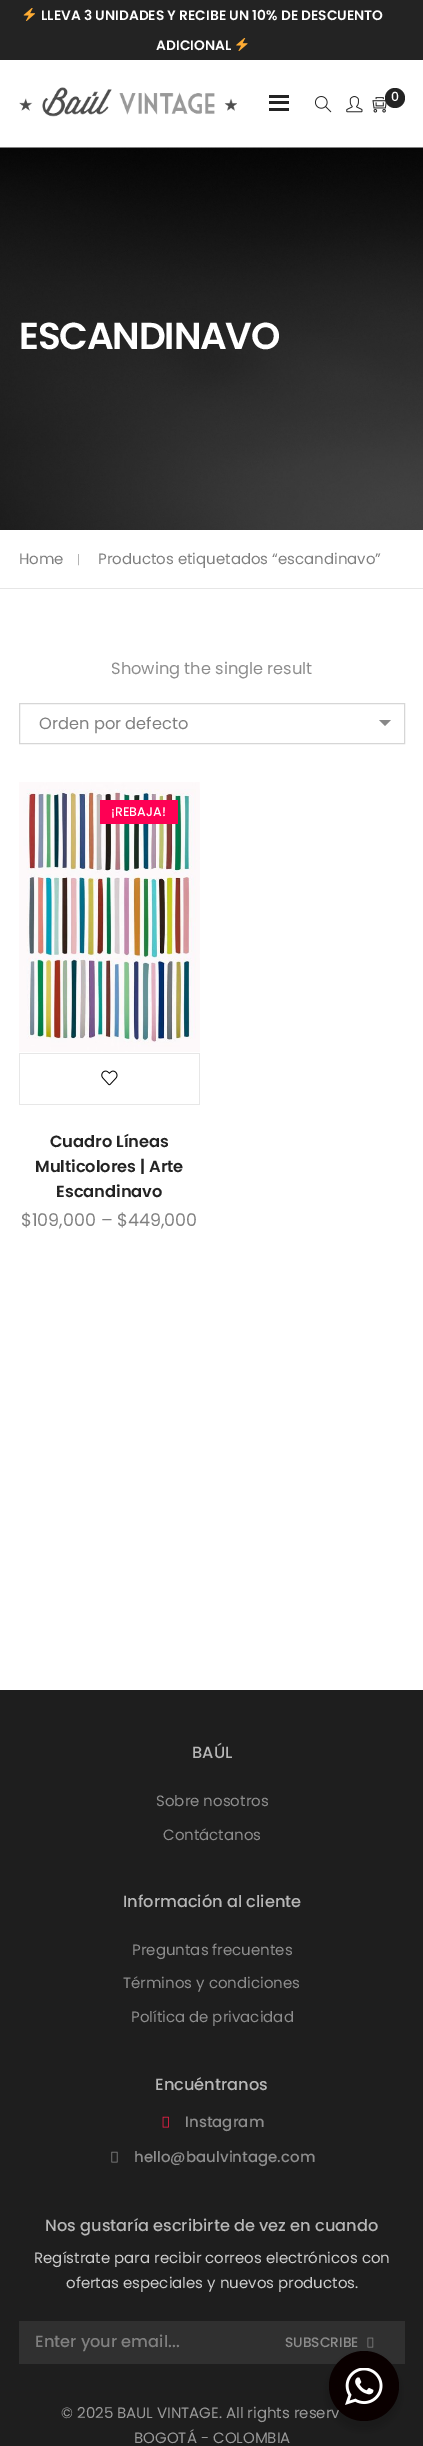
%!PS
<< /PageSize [423 2446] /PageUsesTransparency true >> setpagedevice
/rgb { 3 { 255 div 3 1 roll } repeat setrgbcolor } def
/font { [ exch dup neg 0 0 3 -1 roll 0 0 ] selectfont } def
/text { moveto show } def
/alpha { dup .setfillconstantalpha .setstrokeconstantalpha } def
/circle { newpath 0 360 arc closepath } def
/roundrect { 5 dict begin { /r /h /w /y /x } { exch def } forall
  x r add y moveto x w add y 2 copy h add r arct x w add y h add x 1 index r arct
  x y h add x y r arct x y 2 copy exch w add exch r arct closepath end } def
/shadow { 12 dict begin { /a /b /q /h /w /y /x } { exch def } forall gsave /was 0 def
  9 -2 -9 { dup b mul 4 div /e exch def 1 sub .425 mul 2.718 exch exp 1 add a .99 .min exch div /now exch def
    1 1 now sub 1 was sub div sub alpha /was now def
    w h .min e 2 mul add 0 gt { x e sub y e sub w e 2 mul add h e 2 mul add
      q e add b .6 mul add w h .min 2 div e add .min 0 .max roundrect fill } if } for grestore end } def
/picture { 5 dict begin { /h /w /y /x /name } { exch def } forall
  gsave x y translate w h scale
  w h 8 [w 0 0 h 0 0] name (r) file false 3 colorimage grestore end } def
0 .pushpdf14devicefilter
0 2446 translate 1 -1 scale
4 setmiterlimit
255 255 255 rgb
0 0 423 2446 rectfill
35 35 35 rgb
0 0 423 60 rectfill
(img_01.rgb) 23 8 12 13 picture
(img_02.rgb) 236 38 12 13 picture
(img_03.rgb) 19 87 218 30 picture
269 95 20 3 rectfill
269 101 20 3 rectfill
269 108 20 3 rectfill
(img_04.rgb) 314 96 18 17 picture
(img_05.rgb) 346 96 17 17 picture
(img_06.rgb) 372 97 15 16 picture
395 98 10 circle fill
(img_07.rgb) 0 147 423 383 picture
230 230 230 rgb
0 588 423 1 rectfill
214 214 214 rgb
19.5 703.5 385 40 rectstroke
136 136 136 rgb
379 720 moveto 12 0 rlineto -6 6 rlineto closepath fill
(img_08.rgb) 19 782 181 270 picture
254 0 84 rgb
100 800 78 24 rectfill
231 231 231 rgb
19 1053 181 1 rectfill
19 1104 181 1 rectfill
19 1053 1 52 rectfill
199 1054 1 50 rectfill
(img_09.rgb) 101 1070 17 16 picture
30 30 30 rgb
0 1690 423 756 rectfill
(img_10.rgb) 162 2116 7 12 picture
(img_11.rgb) 111 2151 7 12 picture
48 48 48 rgb
19 2321 386 43 rectfill
(img_12.rgb) 367 2337 7 11 picture
0 0 0 rgb
326 2356 75 75 37.5 5 0.14 shadow
/Poppins-SemiBold 13.75 font
255 255 255 rgb
(LLEVA 3 UNIDADES Y RECIBE UN 10% DE DESCUENTO) 41 20 text
(ADICIONAL) 156 50 text
/Poppins-Medium 12.5 font
(0) 391 101 text
/Poppins-SemiBold 37.5 font
19 349 moveto -1.25 0 (ESCANDINAVO) ashow
/Poppins-Regular 15 font
128 128 128 rgb
(Home) 19 564 text
/Poppins-Light 12.5 font
153 153 153 rgb
(|) 77 564 text
/Poppins-Regular 15 font
128 128 128 rgb
(Productos etiquetados “escandinavo”) 98 564 text
/Poppins-Regular 16.25 font
141 141 141 rgb
(Showing the single result) 111 674 text
128 128 128 rgb
(Orden por defecto) 39 729 text
/Poppins-Medium 12.5 font
255 255 255 rgb
(¡REBAJA!) 111 816 text
/Poppins-SemiBold 16.25 font
35 35 35 rgb
(Cuadro Líneas) 50 1147 text
(Multicolores | Arte) 35 1172 text
(Escandinavo) 56 1197 text
/Poppins-Regular 17.5 font
128 128 128 rgb
($109,000 – $449,000) 21 1226 text
/Poppins-Medium 16.25 font
183 183 183 rgb
(BAÚL) 192 1758 text
/Poppins-Regular 15 font
141 141 141 rgb
(Sobre nosotros) 156 1806 text
(Contáctanos) 163 1840 text
/Poppins-Medium 16.25 font
183 183 183 rgb
(Información al cliente) 123 1907 text
/Poppins-Regular 15 font
141 141 141 rgb
(Preguntas frecuentes) 132 1955 text
(Términos y condiciones) 123 1988 text
(Política de privacidad) 131 2022 text
/Poppins-Medium 16.25 font
183 183 183 rgb
(Encuéntranos) 155 2090 text
/Poppins-Medium 15 font
141 141 141 rgb
(Instagram) 185 2127 text
(hello@baulvintage.com) 134 2162 text
/Poppins-Medium 16.25 font
183 183 183 rgb
(Nos gustaría escribirte de vez en cuando) 45 2231 text
/Poppins-Regular 15 font
204 204 204 rgb
(Regístrate para recibir correos electrónicos con) 34 2263 text
(ofertas especiales y nuevos productos.) 66 2288 text
/Poppins-Medium 16.25 font
128 128 128 rgb
(Enter your email...) 35 2347 text
/Poppins-Medium 13.75 font
141 141 141 rgb
(SUBSCRIBE) 285 2347 text
/Poppins-Regular 15 font
153 153 153 rgb
(© 2025 BAUL VINTAGE. All rights reserv) 61 2418 text
(BOGOTÁ - COLOMBIA) 134 2443 text
10 0 0 rgb
364 2386 35 circle fill
(img_13.rgb) 345 2368 38 37 picture
.poppdf14devicefilter showpage
